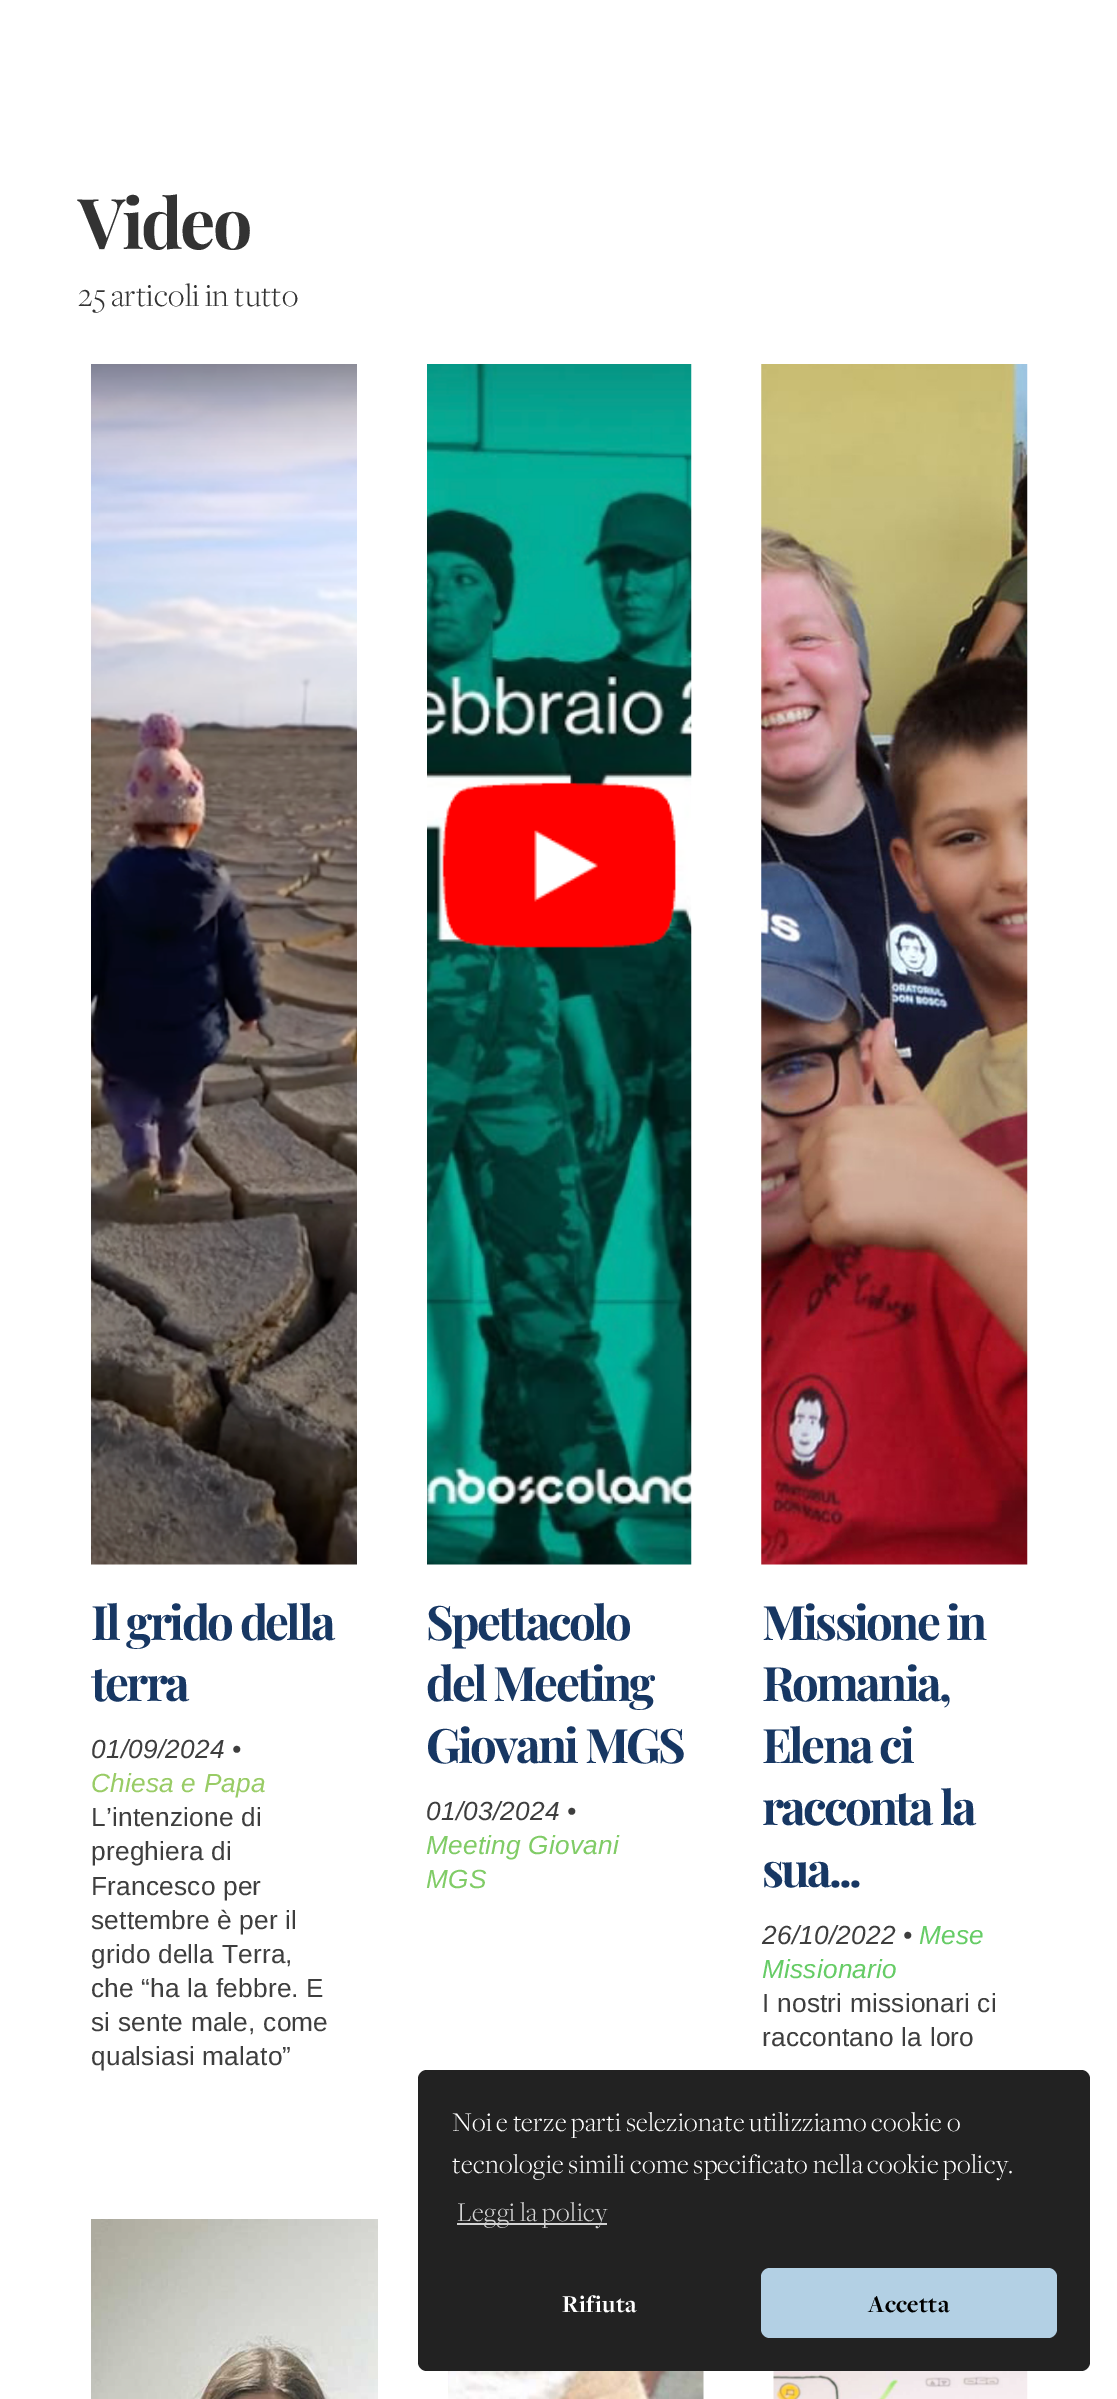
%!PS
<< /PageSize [1117 2399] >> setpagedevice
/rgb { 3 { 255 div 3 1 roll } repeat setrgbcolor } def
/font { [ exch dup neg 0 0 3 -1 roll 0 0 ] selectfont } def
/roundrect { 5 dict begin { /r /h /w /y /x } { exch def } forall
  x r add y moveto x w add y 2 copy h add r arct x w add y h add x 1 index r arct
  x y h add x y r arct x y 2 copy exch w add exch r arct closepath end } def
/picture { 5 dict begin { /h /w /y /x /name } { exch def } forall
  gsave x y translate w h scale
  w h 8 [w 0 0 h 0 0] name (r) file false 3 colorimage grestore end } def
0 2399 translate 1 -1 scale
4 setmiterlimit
255 255 255 rgb
0 0 1117 2399 rectfill
(img_01.rgb) 91 364 266 1201 picture
(img_02.rgb) 427 364 265 1201 picture
(img_03.rgb) 761 364 267 1201 picture
(img_04.rgb) 91 2219 287 180 picture
(img_05.rgb) 448 2371 256 28 picture
(img_06.rgb) 773 2371 255 28 picture
34 34 34 rgb
418 2070 672 301 9 roundrect fill
211 211 211 rgb
457 2223 150 2 rectfill
179 208 228 rgb
761 2268 296 70 9 roundrect fill
/PlayfairDisplay-Bold 70 font
51 51 51 rgb
78 249 moveto -2.75 0 (Video) ashow
/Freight-Light 33.5 font
78 306 moveto 0.35 0 (25 articoli in tutto) ashow
/PlayfairDisplay-Bold 47.5 font
23 55 99 rgb
91 1640 moveto -2.75 0 (Il grido della) ashow
91 1701 moveto -2.75 0 (terra) ashow
/LiberationSans-Italic 26.25 font
62 62 62 rgb
91 1758 moveto 0.2 0 (01/09/2024 •) ashow
153 204 102 rgb
91 1792 moveto 0.2 0 (Chiesa e Papa) ashow
/LiberationSans-Regular 26.25 font
62 62 62 rgb
91 1826 moveto 0.2 0 (L’intenzione di) ashow
91 1860 moveto 0.2 0 (preghiera di) ashow
91 1895 moveto 0.2 0 (Francesco per) ashow
91 1929 moveto 0.2 0 (settembre è per il) ashow
91 1963 moveto 0.2 0 (grido della Terra,) ashow
91 1997 moveto 0.2 0 (che “ha la febbre. E) ashow
91 2031 moveto 0.2 0 (si sente male, come) ashow
91 2065 moveto 0.2 0 (qualsiasi malato”) ashow
/PlayfairDisplay-Bold 47.5 font
23 55 99 rgb
426 1640 moveto -2.75 0 (Spettacolo) ashow
426 1701 moveto -2.75 0 (del Meeting) ashow
426 1763 moveto -2.75 0 (Giovani MGS) ashow
/LiberationSans-Italic 26.25 font
62 62 62 rgb
426 1820 moveto 0.2 0 (01/03/2024 •) ashow
128 204 102 rgb
426 1854 moveto 0.2 0 (Meeting Giovani) ashow
426 1888 moveto 0.2 0 (MGS) ashow
/PlayfairDisplay-Bold 47.5 font
23 55 99 rgb
762 1640 moveto -2.75 0 (Missione in) ashow
762 1701 moveto -2.75 0 (Romania,) ashow
762 1763 moveto -2.75 0 (Elena ci) ashow
762 1825 moveto -2.75 0 (racconta la) ashow
762 1887 moveto -2.75 0 (sua...) ashow
/LiberationSans-Italic 26.25 font
62 62 62 rgb
762 1944 moveto 0.2 0 (26/10/2022 •) ashow
102 204 102 rgb
919 1944 moveto 0.2 0 (Mese) ashow
762 1978 moveto 0.2 0 (Missionario) ashow
/LiberationSans-Regular 26.25 font
62 62 62 rgb
762 2012 moveto 0.2 0 (I nostri missionari ci) ashow
762 2046 moveto 0.2 0 (raccontano la loro) ashow
/Freight-Light 28 font
255 255 255 rgb
452 2131 moveto 0.35 0 (Noi e terze parti selezionate utilizziamo cookie o) ashow
452 2173 moveto 0.35 0 (tecnologie simili come specificato nella cookie policy.) ashow
211 211 211 rgb
457 2221 moveto 0.35 0 (Leggi la policy) ashow
/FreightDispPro-Bold 25 font
255 255 255 rgb
562 2312 moveto 0.35 0 (Rifiuta) ashow
0 0 0 rgb
868 2312 moveto 0.35 0 (Accetta) ashow
showpage
